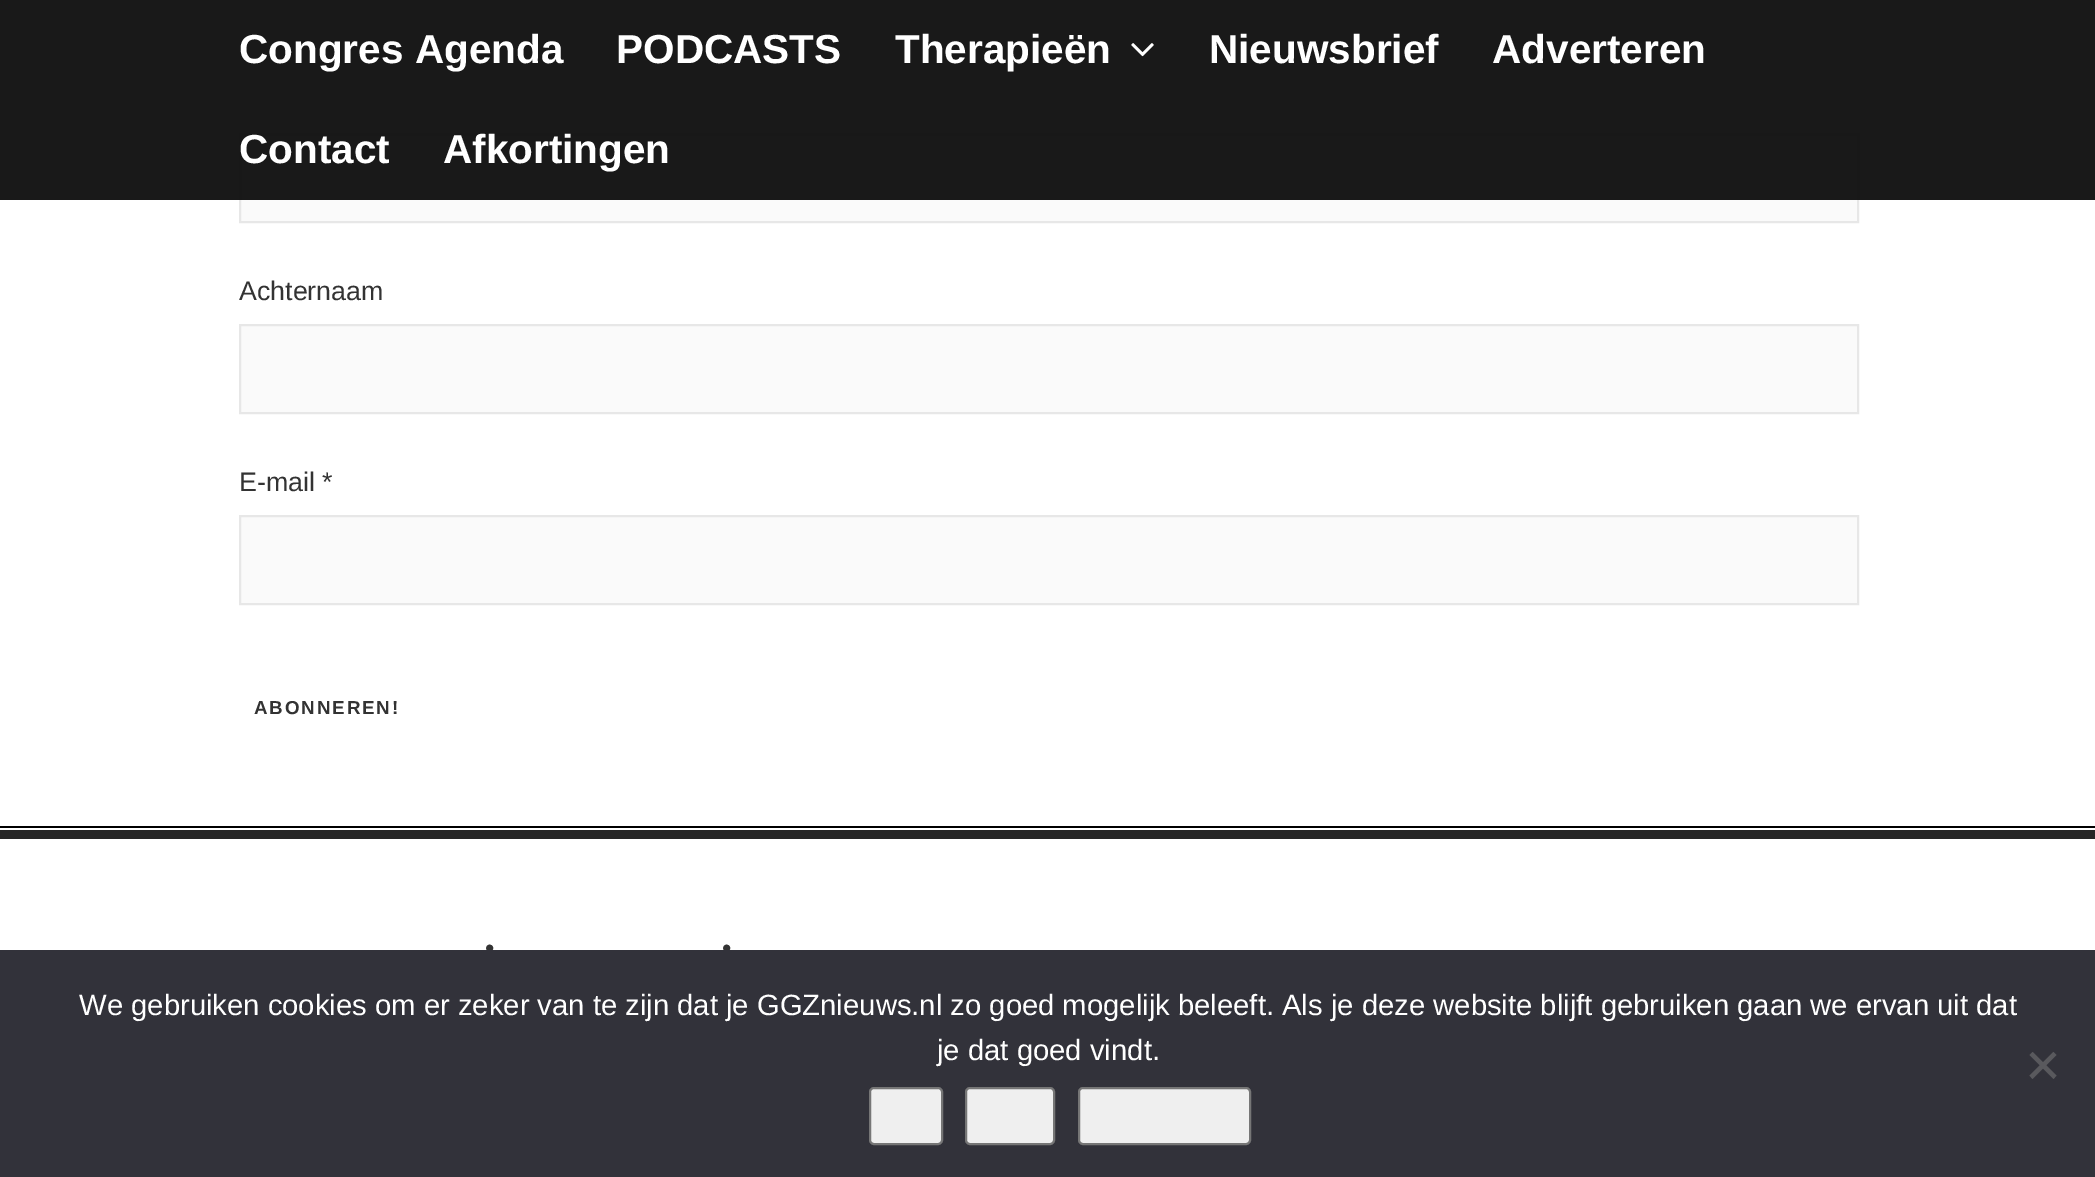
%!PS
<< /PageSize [2095 1177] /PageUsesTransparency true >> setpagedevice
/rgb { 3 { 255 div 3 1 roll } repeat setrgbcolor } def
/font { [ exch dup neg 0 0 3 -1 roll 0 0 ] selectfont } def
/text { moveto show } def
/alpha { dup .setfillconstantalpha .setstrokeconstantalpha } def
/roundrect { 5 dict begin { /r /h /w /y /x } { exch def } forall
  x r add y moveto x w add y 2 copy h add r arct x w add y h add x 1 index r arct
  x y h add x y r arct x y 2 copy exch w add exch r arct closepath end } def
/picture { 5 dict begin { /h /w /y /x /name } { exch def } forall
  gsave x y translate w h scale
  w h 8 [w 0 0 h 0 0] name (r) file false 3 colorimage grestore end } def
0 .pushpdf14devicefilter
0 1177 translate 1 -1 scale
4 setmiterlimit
255 255 255 rgb
0 0 2095 1177 rectfill
250 250 250 rgb
240 134 moveto 1618 0 rlineto 0 88 rlineto -1618 0 rlineto closepath gsave fill grestore
231 231 231 rgb
2 setlinewidth
stroke
0.98 alpha
20 20 20 rgb
0 0 2095 200 rectfill
1 alpha
(img_01.rgb) 1131 43 23 14 picture
250 250 250 rgb
240 325 moveto 1618 0 rlineto 0 88 rlineto -1618 0 rlineto closepath gsave fill grestore
231 231 231 rgb
stroke
250 250 250 rgb
240 516 moveto 1618 0 rlineto 0 88 rlineto -1618 0 rlineto closepath gsave fill grestore
231 231 231 rgb
stroke
38 38 38 rgb
0 830 2095 9 rectfill
0 0 0 rgb
0 826 2095 2 rectfill
/LiberationSans-Bold 40.5 font
255 255 255 rgb
(Congres Agenda) 239 63 text
(PODCASTS) 616 63 text
(Therapieën) 895 63 text
(Nieuwsbrief) 1209 63 text
(Adverteren) 1492 63 text
(Contact) 239 163 text
(Afkortingen) 443 163 text
/LiberationSans-Regular 26.75 font
51 51 51 rgb
(Achternaam) 239 300 text
(E-mail *) 239 491 text
/LiberationSans-Bold 18.75 font
254 714 moveto 1.9 0 (ABONNEREN!) ashow
/LiberationSans-Regular 26.75 font
(•) 485 957 text
(•) 722 957 text
50 50 58 rgb
0 950 2095 227 rectfill
/LiberationSans-Regular 29.25 font
255 255 255 rgb
(We gebruiken cookies om er zeker van te zijn dat je GGZnieuws.nl zo goed mogelijk beleeft. Als je deze website blijft gebruiken gaan we ervan uit dat) 79 1015 text
(je dat goed vindt.) 937 1060 text
89 89 93 rgb
2053.5 1052 moveto 3 3 rlineto -24 24 rlineto -3 -3.5 rlineto closepath fill
2029.5 1055 moveto 3 -3 rlineto 24 23.5 rlineto -3 3.5 rlineto closepath fill
239 239 239 rgb
870 1088 72 56 4 roundrect gsave fill grestore
118 118 118 rgb
stroke
239 239 239 rgb
966 1088 88 56 4 roundrect gsave fill grestore
118 118 118 rgb
stroke
239 239 239 rgb
1079 1088 171 56 4 roundrect gsave fill grestore
118 118 118 rgb
stroke
.poppdf14devicefilter showpage
